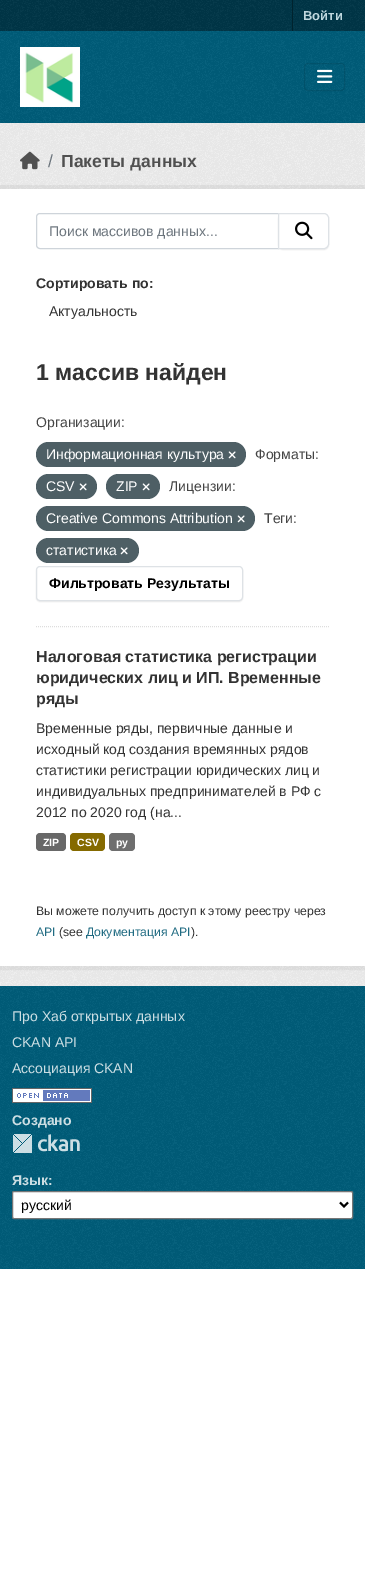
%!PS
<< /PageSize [365 1595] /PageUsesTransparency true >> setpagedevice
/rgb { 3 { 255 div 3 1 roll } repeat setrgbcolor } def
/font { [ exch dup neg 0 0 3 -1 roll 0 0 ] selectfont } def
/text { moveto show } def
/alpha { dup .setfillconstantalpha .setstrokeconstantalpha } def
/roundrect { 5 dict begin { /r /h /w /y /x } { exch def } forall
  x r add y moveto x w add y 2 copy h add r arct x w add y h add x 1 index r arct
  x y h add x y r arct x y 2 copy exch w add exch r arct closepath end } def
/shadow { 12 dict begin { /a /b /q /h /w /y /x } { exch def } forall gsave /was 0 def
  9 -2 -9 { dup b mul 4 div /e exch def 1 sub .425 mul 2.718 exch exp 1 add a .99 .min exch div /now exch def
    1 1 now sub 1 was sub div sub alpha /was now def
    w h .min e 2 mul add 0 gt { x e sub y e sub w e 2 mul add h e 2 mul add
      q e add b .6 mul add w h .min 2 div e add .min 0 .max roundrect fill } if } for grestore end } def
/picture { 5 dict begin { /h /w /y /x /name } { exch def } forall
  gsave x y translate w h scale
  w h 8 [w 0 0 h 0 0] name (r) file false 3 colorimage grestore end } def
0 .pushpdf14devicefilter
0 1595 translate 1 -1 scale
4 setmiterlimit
255 255 255 rgb
0 0 365 1595 rectfill
0 54 71 rgb
0 0 365 31 rectfill
(img_01.rgb) 0 0 365 31 picture
0 35 46 rgb
292 0 1 31 rectfill
0 93 122 rgb
0 31 365 92 rectfill
(img_02.rgb) 0 31 365 92 picture
(img_03.rgb) 20 47 60 60 picture
0.1 alpha
0 0 0 rgb
304.5 63.5 40 27 3.5 roundrect stroke
1 alpha
(img_04.rgb) 317 69 16 14 picture
238 238 238 rgb
0 123 365 863 rectfill
(img_05.rgb) 0 123 365 863 picture
(img_06.rgb) 20 151 20 19 picture
0.05 alpha
0 0 0 rgb
4 setlinewidth
-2 187 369 781 rectstroke
1 alpha
255 255 255 rgb
0 189 365 777 rectfill
221 221 221 rgb
1 setlinewidth
[1 1] 0 setdash
36 626.5 moveto 293 0 rlineto stroke
206 212 218 rgb
[] 0 setdash
40 213.5 moveto 238.5 0 rlineto 0 35 rlineto -238.5 0 rlineto -2 0 -3.5 -1.5 -3.5 -3.5 rcurveto 0 -28 rlineto 0 -2 1.5 -3.5 3.5 -3.5 rcurveto closepath stroke
0 0 0 rgb
278 214 51 36 5 0.5 0.07 shadow
255 255 255 rgb
278.5 213.5 moveto 45.5 0 rlineto 2.5 0 4.5 2 4.5 4.5 rcurveto 0 26 rlineto 0 2.5 -2 4.5 -4.5 4.5 rcurveto -45.5 0 rlineto closepath gsave fill grestore
222 226 230 rgb
stroke
(img_07.rgb) 295 221 18 19 picture
78 95 101 rgb
36 442 210 25 12.5 roundrect fill
(img_08.rgb) 228 451 8 8 picture
36 474 61 25 12.5 roundrect fill
(img_08.rgb) 79 483 8 8 picture
106 474 54 25 12.5 roundrect fill
(img_08.rgb) 142 483 8 8 picture
36 506 219 25 12.5 roundrect fill
(img_08.rgb) 237 515 8 8 picture
36 538 103 25 12.5 roundrect fill
(img_08.rgb) 120 547 8 8 picture
0 0 0 rgb
36 567 207 35 4 0.5 0.07 shadow
255 255 255 rgb
36.5 566.5 206 34 3.5 roundrect gsave fill grestore
222 226 230 rgb
stroke
104 104 104 rgb
36 833 30 18 4 roundrect fill
133 106 0 rgb
70 833 35 18 4 roundrect fill
110 110 110 rgb
109 833 26 18 4 roundrect fill
0 93 122 rgb
0 986 365 283 rectfill
(img_09.rgb) 0 986 365 283 picture
(img_10.rgb) 12 1088 80 15 picture
(img_11.rgb) 13 1134 67 19 picture
255 255 255 rgb
12.5 1191.5 340 27 1.5 roundrect gsave fill grestore
118 118 118 rgb
stroke
0 0 0 rgb
2 setlinewidth
340 1202.5 moveto 4 4 rlineto 4 -4 rlineto stroke
/LiberationSans-Bold 13 font
191 215 222 rgb
(Войти) 303 20 text
/LiberationSans-Regular 17.5 font
108 117 125 rgb
(/) 48 167 text
/LiberationSans-Bold 17.5 font
80 80 80 rgb
(Пакеты данных) 61 167 text
/LiberationSans-Regular 14 font
108 117 125 rgb
(Поиск массивов данных...) 49 236 text
/LiberationSans-Bold 14 font
51 51 51 rgb
(Сортировать по:) 36 288 text
/LiberationSans-Regular 14 font
(Актуальность) 49 316 text
/LiberationSans-Bold 23 font
(1 массив найден) 36 380 text
/LiberationSans-Regular 14 font
68 68 68 rgb
(Организации:) 36 427 text
255 255 255 rgb
(Информационная культура) 46 459 text
68 68 68 rgb
(Форматы:) 255 459 text
255 255 255 rgb
(CSV) 46 491 text
(ZIP) 116 491 text
68 68 68 rgb
(Лицензии:) 169 491 text
255 255 255 rgb
(Creative Commons Attribution) 46 523 text
68 68 68 rgb
(Теги:) 264 523 text
255 255 255 rgb
(статистика) 46 555 text
/LiberationSans-Bold 14 font
0 0 0 rgb
(Фильтровать Результаты) 49 588 text
/LiberationSans-Bold 16 font
51 51 51 rgb
(Налоговая статистика регистрации) 36 662 text
(юридических лиц и ИП. Временные) 36 683 text
(ряды) 36 704 text
/LiberationSans-Regular 14 font
(Временные ряды, первичные данные и) 36 733 text
(исходный код создания времянных рядов) 36 754 text
(статистики регистрации юридических лиц и) 36 775 text
(индивидуальных предпринимателей в РФ с) 36 796 text
(2012 по 2020 год \(на...) 36 817 text
/LiberationSans-Bold 10.5 font
255 255 255 rgb
(ZIP) 43 846 text
(CSV) 77 846 text
(py) 116 846 text
/LiberationSans-Regular 12.25 font
51 51 51 rgb
(Вы можете получить доступ к этому реестру через) 36 915 text
32 107 130 rgb
(API) 36 936 text
51 51 51 rgb
(\(see) 59 936 text
32 107 130 rgb
(Документация API) 86 936 text
51 51 51 rgb
(\).) 191 936 text
/LiberationSans-Regular 14 font
204 222 227 rgb
(Про Хаб открытых данных) 12 1021 text
(CKAN API) 12 1047 text
(Ассоциация CKAN) 12 1073 text
/LiberationSans-Bold 14 font
(Создано) 12 1125 text
(Язык:) 12 1185 text
/LiberationSans-Regular 14 font
0 0 0 rgb
(русский) 21 1210 text
.poppdf14devicefilter showpage
